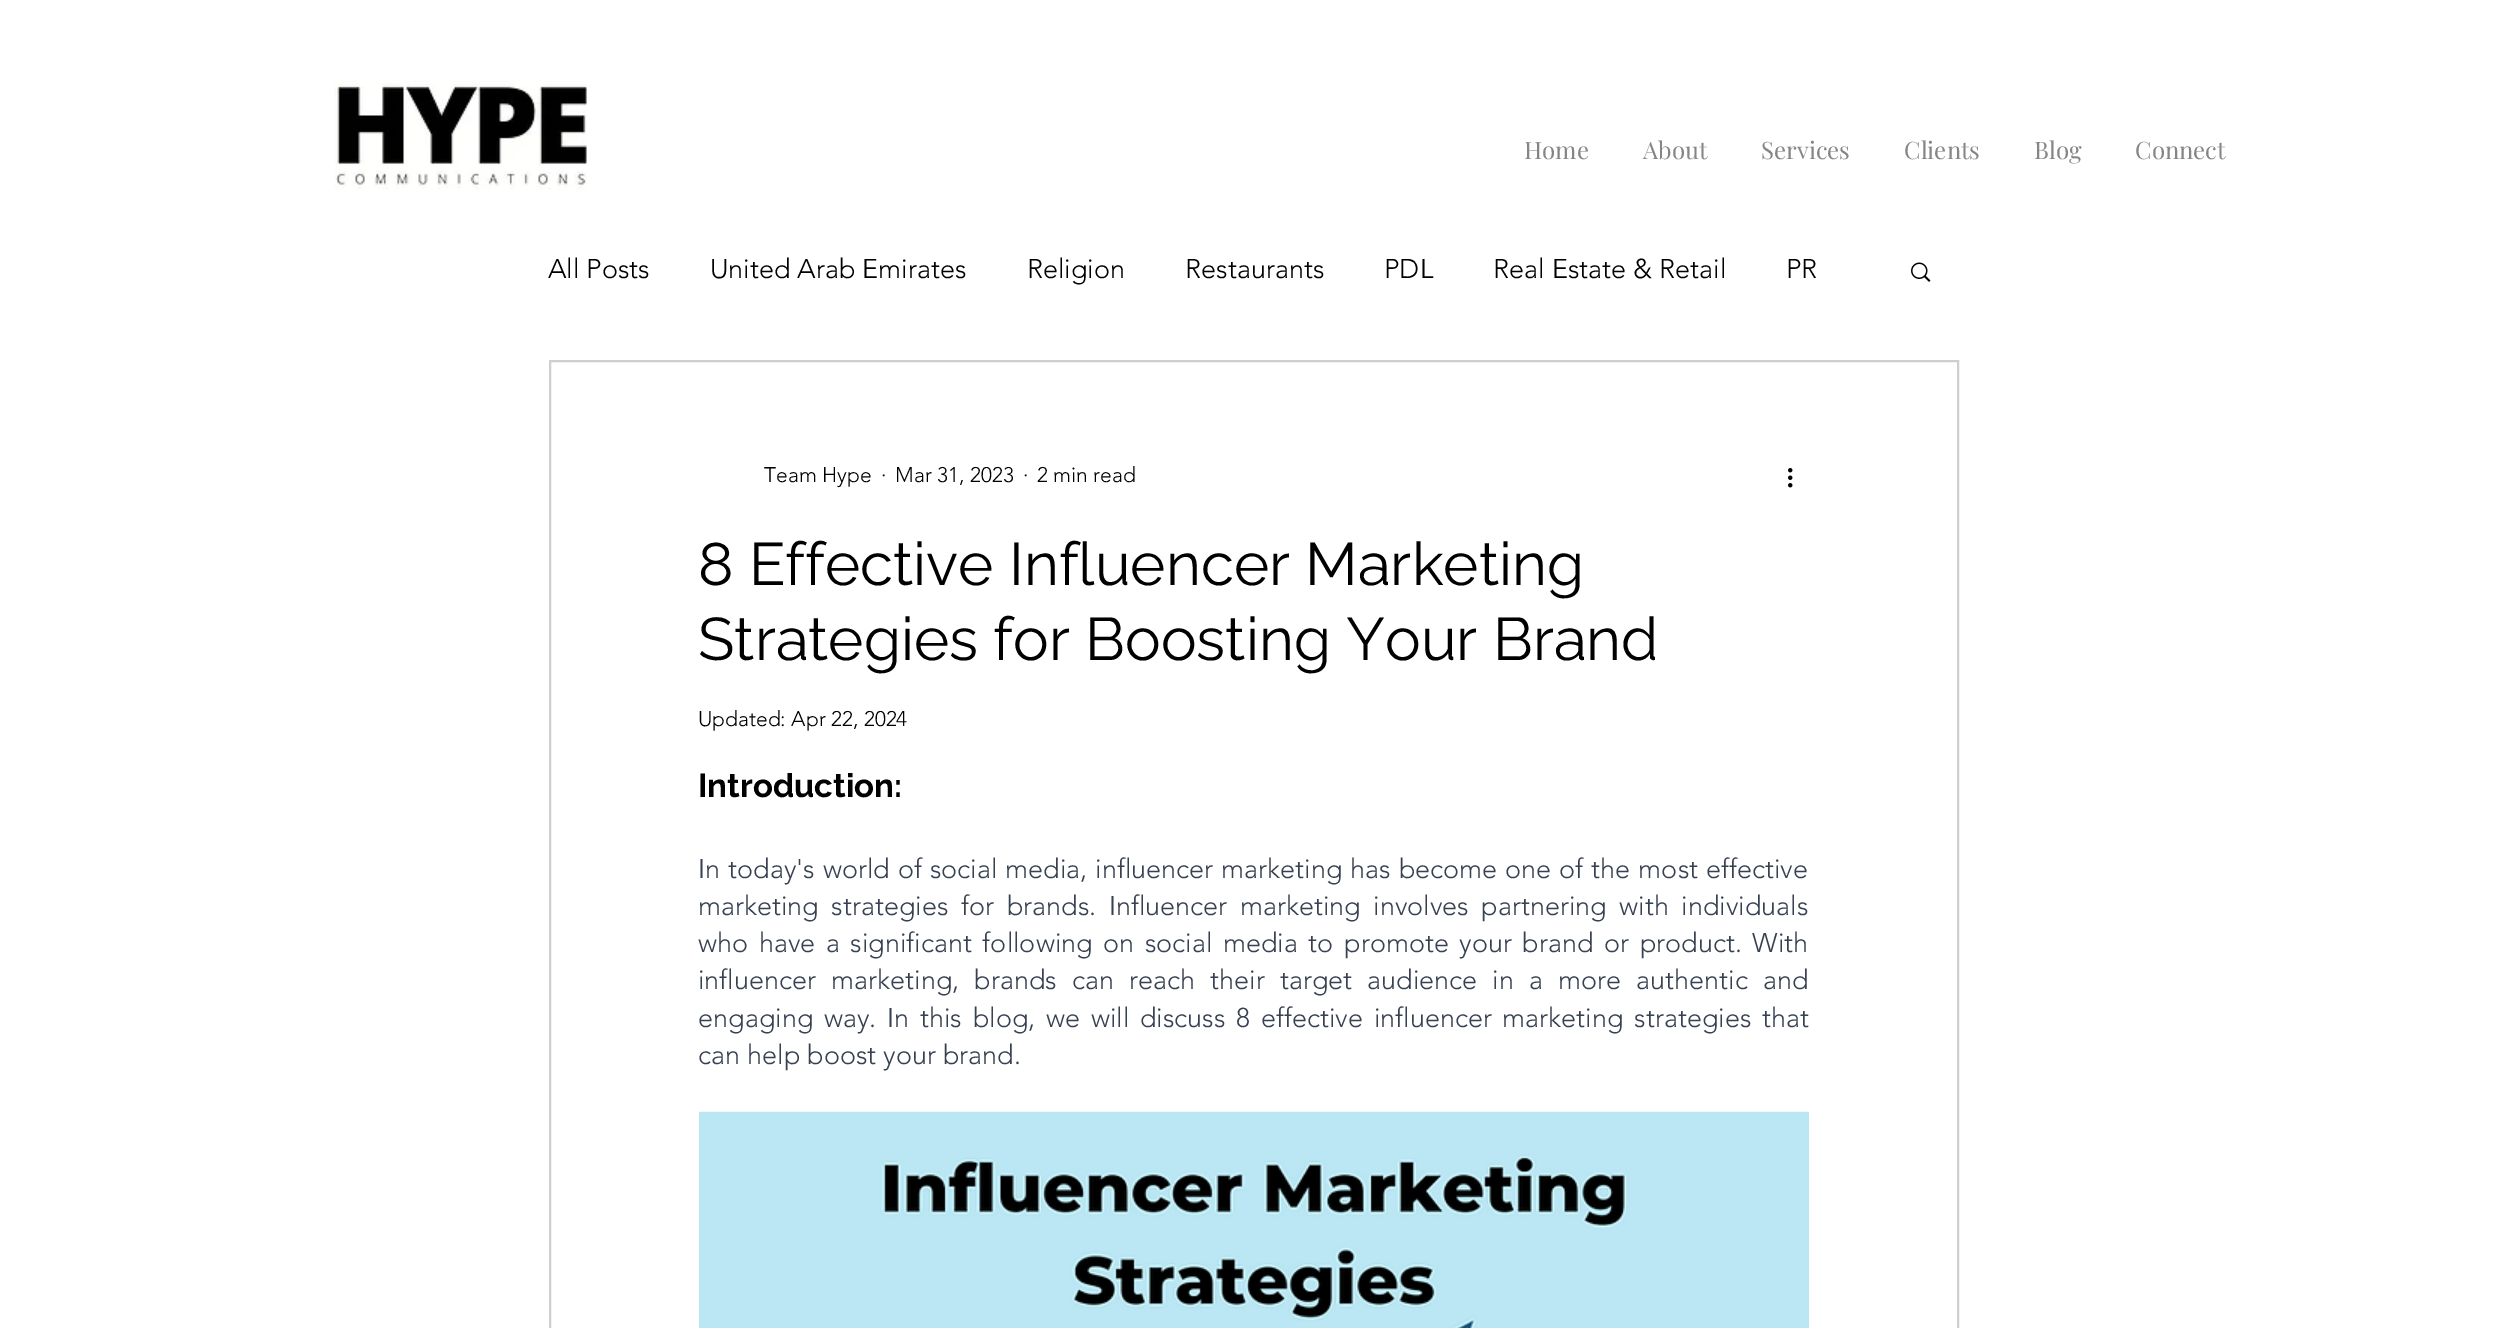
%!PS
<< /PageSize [2506 1328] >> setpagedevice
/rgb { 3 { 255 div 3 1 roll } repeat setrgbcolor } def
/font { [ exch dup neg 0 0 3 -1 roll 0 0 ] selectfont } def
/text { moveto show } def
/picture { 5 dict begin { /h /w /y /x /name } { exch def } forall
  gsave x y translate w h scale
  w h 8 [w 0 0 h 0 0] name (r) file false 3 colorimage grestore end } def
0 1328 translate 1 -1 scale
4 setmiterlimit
255 255 255 rgb
0 0 2506 1328 rectfill
(img_01.rgb) 334 80 253 110 picture
(img_02.rgb) 1911 262 20 20 picture
207 207 207 rgb
2 setlinewidth
550 361 1408 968 rectstroke
(img_03.rgb) 1788 468 5 20 picture
(img_04.rgb) 699 1111 1110 217 picture
/PlayfairDisplay-Regular 24 font
133 133 133 rgb
(Home) 1524 159 text
(About) 1643 159 text
(Services) 1761 159 text
(Clients) 1904 159 text
(Blog) 2034 159 text
(Connect) 2135 159 text
/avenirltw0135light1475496-Light 27 font
0 0 0 rgb
(All Posts) 548 278 text
(United Arab Emirates) 710 278 text
(Religion) 1027 278 text
(Restaurants) 1185 278 text
(PDL) 1384 278 text
(Real Estate & Retail) 1493 278 text
(PR) 1786 278 text
/avenirltw0135light1475496-Light 21 font
(Team Hype) 764 482 text
(·) 881 482 text
(Mar 31, 2023) 895 482 text
(·) 1023 482 text
(2 min read) 1037 482 text
/Raleway-Regular 60 font
(8 Effective Influencer Marketing) 698 585 text
(Strategies for Boosting Your Brand) 698 660 text
/avenirltw0135light1475496-Light 21 font
(Updated: Apr 22, 2024) 698 726 text
/Raleway-Bold 33 font
(Introduction:) 698 797 text
/avenirltw0135light1475496-Light 27 font
55 65 81 rgb
698 878 moveto 1 0 32 (In today's world of social media, influencer marketing has become one of the most effective) widthshow
698 915 moveto 5.5 0 32 (marketing strategies for brands. Influencer marketing involves partnering with individuals) widthshow
698 952 moveto 3.6 0 32 (who have a significant following on social media to promote your brand or product. With) widthshow
698 989 moveto 8.1 0 32 (influencer marketing, brands can reach their target audience in a more authentic and) widthshow
698 1027 moveto 3.75 0 32 (engaging way. In this blog, we will discuss 8 effective influencer marketing strategies that) widthshow
(can help boost your brand.) 698 1064 text
showpage
